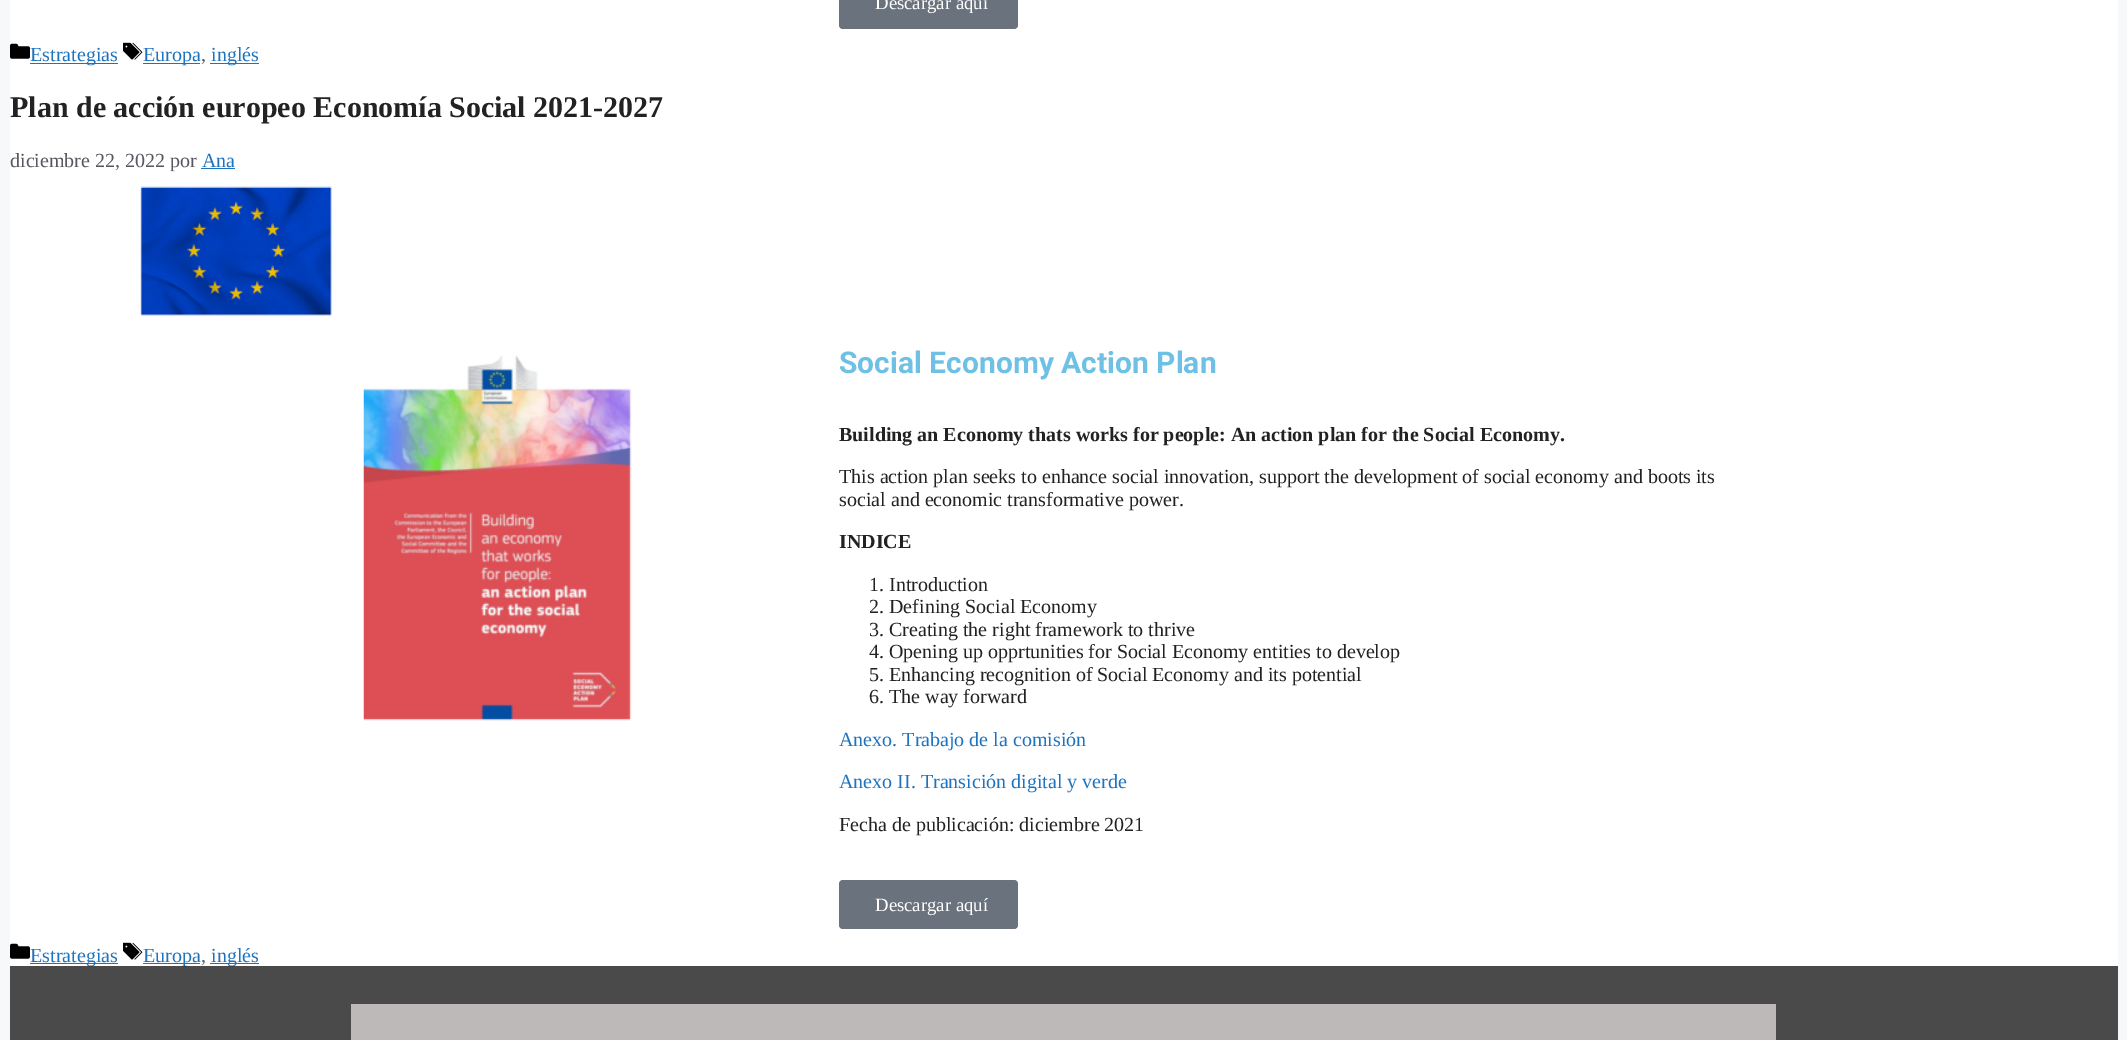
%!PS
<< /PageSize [2127 1040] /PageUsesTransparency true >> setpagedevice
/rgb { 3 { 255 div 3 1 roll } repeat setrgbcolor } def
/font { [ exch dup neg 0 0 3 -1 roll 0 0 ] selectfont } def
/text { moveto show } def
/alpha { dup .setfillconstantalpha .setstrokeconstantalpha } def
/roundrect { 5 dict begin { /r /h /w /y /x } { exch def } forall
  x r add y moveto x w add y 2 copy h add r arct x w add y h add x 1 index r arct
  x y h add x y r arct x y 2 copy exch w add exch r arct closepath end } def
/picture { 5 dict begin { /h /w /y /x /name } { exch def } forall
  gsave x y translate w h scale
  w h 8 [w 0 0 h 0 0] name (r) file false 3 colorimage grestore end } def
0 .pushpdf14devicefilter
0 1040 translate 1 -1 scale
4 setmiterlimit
247 248 249 rgb
0 0 2127 1040 rectfill
255 255 255 rgb
10 0 2108 966 rectfill
105 114 125 rgb
839 -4 179 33 4 roundrect fill
(img_01.rgb) 10 43 20 16 picture
30 115 190 rgb
30 63 88 1 rectfill
(img_02.rgb) 123 42 20 18 picture
143 63 57 1 rectfill
210 63 49 1 rectfill
201 168 34 1 rectfill
(img_04.rgb) 363 355 269 366 picture
105 114 125 rgb
839 880 179 49 4 roundrect fill
(img_01.rgb) 10 943 20 16 picture
30 115 190 rgb
30 963 88 1 rectfill
(img_02.rgb) 123 942 20 18 picture
143 963 57 1 rectfill
210 963 49 1 rectfill
/LiberationSerif-Regular 18.75 font
255 255 255 rgb
(Descargar aquí) 875 9 text
/LiberationSerif-Regular 20 font
30 115 190 rgb
(Estrategias) 30 61 text
(Europa) 143 61 text
87 87 96 rgb
(,) 201 61 text
30 115 190 rgb
(inglés) 211 61 text
/LiberationSerif-Bold 30 font
34 34 34 rgb
(Plan de acción europeo Economía Social 2021-2027) 10 117 text
/LiberationSerif-Regular 20 font
87 87 96 rgb
(diciembre 22, 2022 por) 10 167 text
30 115 190 rgb
(Ana) 202 167 text
(img_03.rgb) 140 171 192 145 picture
/Roboto-Bold 30 font
110 193 228 rgb
(Social Economy Action Plan) 839 373 text
/LiberationSerif-Bold 20 font
34 34 34 rgb
(Building an Economy thats works for people: An action plan for the Social Economy.) 839 441 text
/LiberationSerif-Regular 20 font
(This action plan seeks to enhance social innovation, support the development of social economy and boots its) 839 483 text
(social and economic transformative power.) 839 506 text
/LiberationSerif-Bold 20 font
(INDICE) 839 548 text
/LiberationSerif-Regular 20 font
(1. Introduction) 869 591 text
(2. Defining Social Economy) 869 613 text
(3. Creating the right framework to thrive) 869 636 text
(4. Opening up opprtunities for Social Economy entities to develop) 869 658 text
(5. Enhancing recognition of Social Economy and its potential) 869 681 text
(6. The way forward) 869 703 text
30 115 190 rgb
(Anexo. Trabajo de la comisión) 839 746 text
(Anexo II. Transición digital y verde) 839 788 text
34 34 34 rgb
(Fecha de publicación: diciembre 2021) 839 831 text
/LiberationSerif-Regular 18.75 font
255 255 255 rgb
(Descargar aquí) 875 911 text
/LiberationSerif-Regular 20 font
30 115 190 rgb
(Estrategias) 30 962 text
(Europa) 143 962 text
87 87 96 rgb
(,) 201 962 text
30 115 190 rgb
(inglés) 211 962 text
0.7 alpha
0 0 0 rgb
10 966 2108 74 rectfill
1 alpha
190 185 185 rgb
351 1004 1425 36 rectfill
.poppdf14devicefilter showpage
